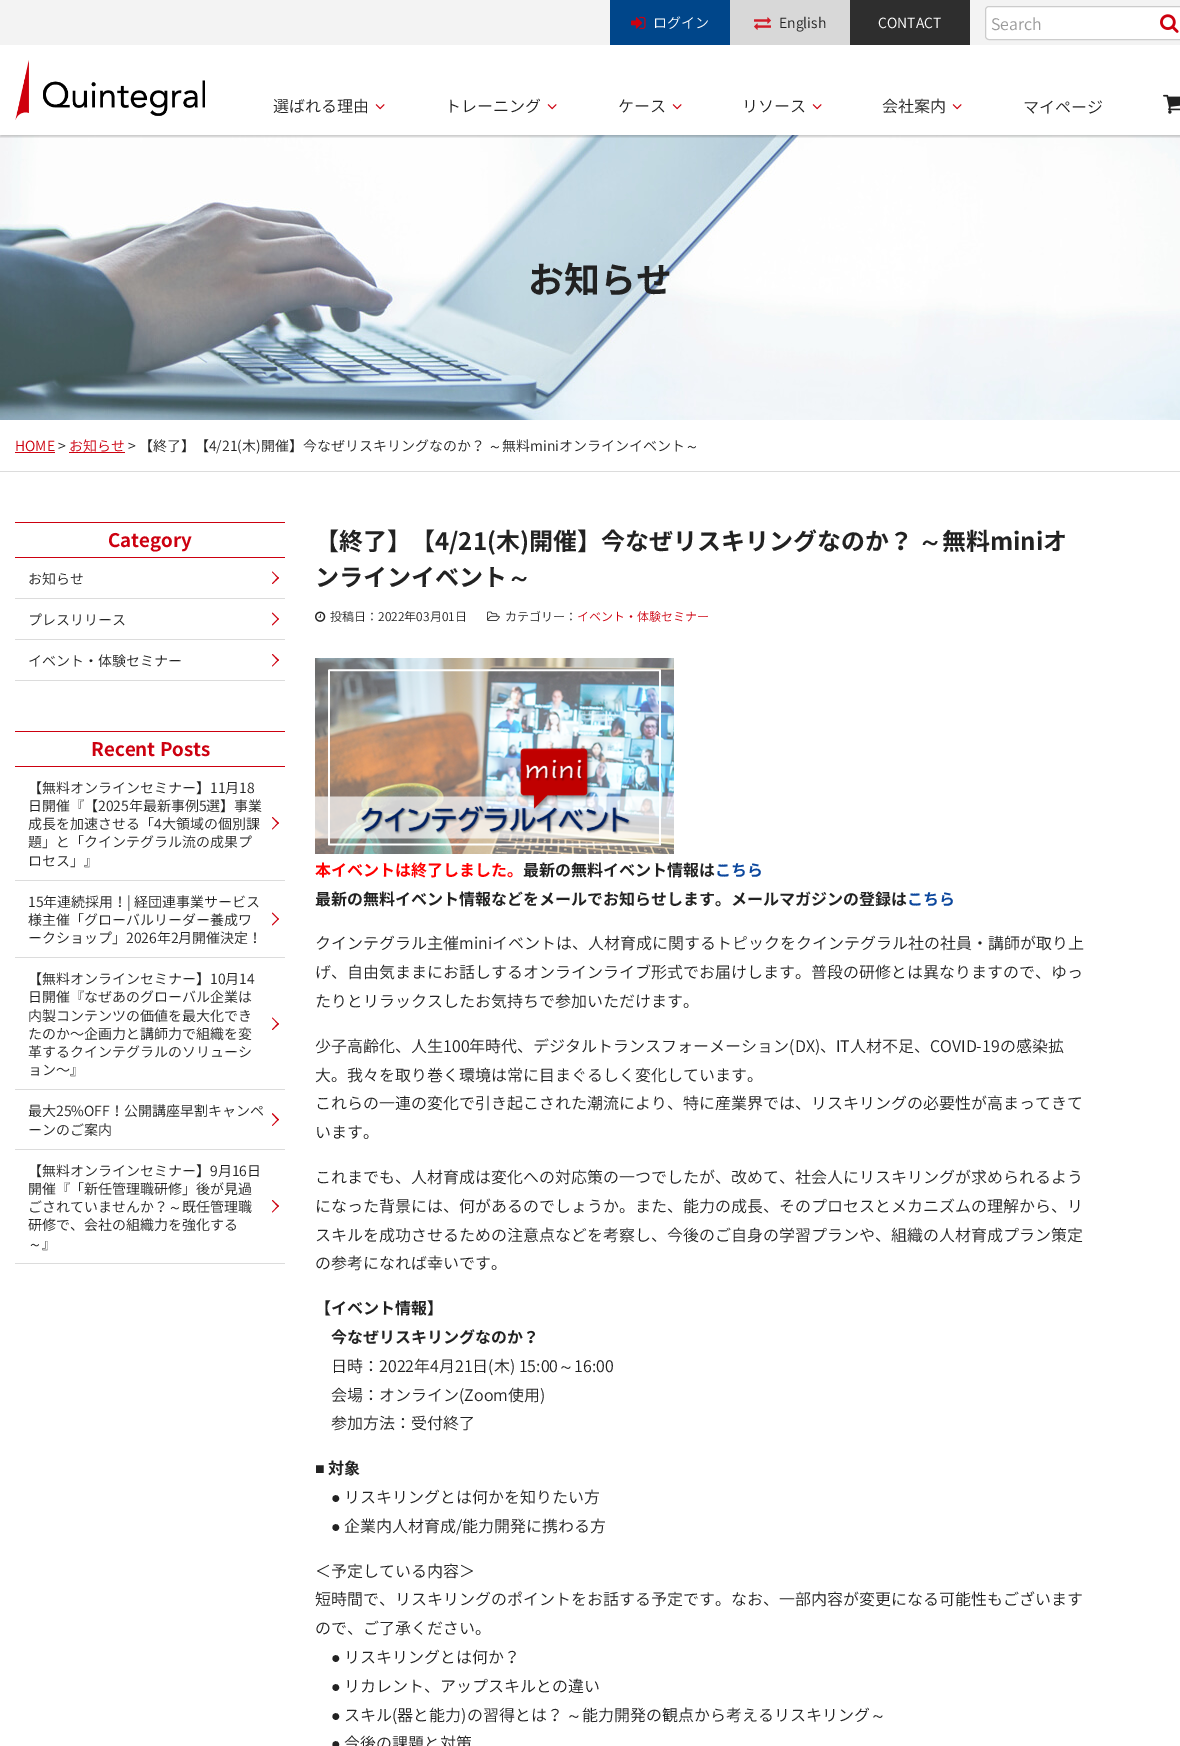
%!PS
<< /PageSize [1180 1746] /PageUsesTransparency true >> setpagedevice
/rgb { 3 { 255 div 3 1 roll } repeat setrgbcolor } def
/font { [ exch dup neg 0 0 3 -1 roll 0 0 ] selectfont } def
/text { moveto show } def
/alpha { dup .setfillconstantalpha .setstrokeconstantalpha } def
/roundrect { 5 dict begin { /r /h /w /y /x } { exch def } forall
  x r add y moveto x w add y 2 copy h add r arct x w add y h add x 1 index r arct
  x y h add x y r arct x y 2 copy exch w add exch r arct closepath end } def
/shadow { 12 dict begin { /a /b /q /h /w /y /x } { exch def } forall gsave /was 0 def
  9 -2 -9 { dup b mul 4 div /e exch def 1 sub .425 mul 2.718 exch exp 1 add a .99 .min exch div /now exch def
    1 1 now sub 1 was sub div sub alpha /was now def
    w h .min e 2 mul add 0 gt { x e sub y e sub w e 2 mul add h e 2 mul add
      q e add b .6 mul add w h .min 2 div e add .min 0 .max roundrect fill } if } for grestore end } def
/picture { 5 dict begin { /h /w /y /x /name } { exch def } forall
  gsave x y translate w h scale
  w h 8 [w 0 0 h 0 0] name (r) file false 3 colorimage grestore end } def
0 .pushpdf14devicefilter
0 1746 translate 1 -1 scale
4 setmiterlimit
255 255 255 rgb
0 0 1180 1746 rectfill
243 243 243 rgb
0 0 1180 45 rectfill
(img_07.rgb) 0 135 1180 285 picture
gsave
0 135 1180 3 rectclip
0 0 0 rgb
0 47 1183 90 0 1 0.2 shadow
grestore
0 70 138 rgb
610 0 120 45 rectfill
(img_01.rgb) 631 16 15 13 picture
216 216 216 rgb
730 0 120 45 rectfill
(img_02.rgb) 754 17 17 13 picture
46 46 46 rgb
850 0 120 45 rectfill
255 255 255 rgb
985.5 6.5 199 33 3.5 roundrect gsave fill grestore
204 204 204 rgb
stroke
(img_03.rgb) 1160 14 19 19 picture
(img_04.rgb) 15 60 190 60 picture
(img_05.rgb) 375 104 10 6 picture
(img_05.rgb) 547 104 10 6 picture
(img_05.rgb) 672 104 10 6 picture
(img_05.rgb) 812 104 10 6 picture
(img_05.rgb) 952 104 10 6 picture
(img_06.rgb) 1163 94 17 20 picture
220 220 220 rgb
0 471 1180 1 rectfill
205 0 15 rgb
15 452 40 1 rectfill
69 452 56 1 rectfill
15 522 270 1 rectfill
15 557 270 1 rectfill
220 220 220 rgb
15 598 270 1 rectfill
205 0 15 rgb
272.5 571.5 moveto 6.5 6.5 rlineto -1 0.5 rlineto -6 -6.5 rlineto closepath fill
278 577 moveto 1 1 rlineto -6.5 6 rlineto -0.5 -0.5 rlineto closepath fill
220 220 220 rgb
15 639 270 1 rectfill
205 0 15 rgb
272.5 612.5 moveto 6.5 6.5 rlineto -1 0.5 rlineto -6 -6 rlineto closepath fill
278 618.5 moveto 1 0.5 rlineto -6.5 6.5 rlineto -0.5 -1 rlineto closepath fill
220 220 220 rgb
15 680 270 1 rectfill
205 0 15 rgb
272.5 654 moveto 6.5 6 rlineto -1 1 rlineto -6 -6.5 rlineto closepath fill
278 659.5 moveto 1 0.5 rlineto -6.5 6.5 rlineto -0.5 -0.5 rlineto closepath fill
15 731 270 1 rectfill
15 766 270 1 rectfill
220 220 220 rgb
15 880 270 1 rectfill
205 0 15 rgb
272.5 817 moveto 6.5 6 rlineto -1 1 rlineto -6 -6.5 rlineto closepath fill
278 822.5 moveto 1 0.5 rlineto -6.5 6.5 rlineto -0.5 -0.5 rlineto closepath fill
220 220 220 rgb
15 957 270 1 rectfill
205 0 15 rgb
272.5 912.5 moveto 6.5 6.5 rlineto -1 0.5 rlineto -6 -6 rlineto closepath fill
278 918.5 moveto 1 0.5 rlineto -6.5 6.5 rlineto -0.5 -1 rlineto closepath fill
220 220 220 rgb
15 1089 270 1 rectfill
205 0 15 rgb
272.5 1017.5 moveto 6.5 6.5 rlineto -1 0.5 rlineto -6 -6.5 rlineto closepath fill
278 1023 moveto 1 1 rlineto -6.5 6 rlineto -0.5 -0.5 rlineto closepath fill
220 220 220 rgb
15 1149 270 1 rectfill
205 0 15 rgb
272.5 1113 moveto 6.5 6.5 rlineto -1 1 rlineto -6 -6.5 rlineto closepath fill
278 1119 moveto 1 0.5 rlineto -6.5 6.5 rlineto -0.5 -0.5 rlineto closepath fill
220 220 220 rgb
15 1263 270 1 rectfill
205 0 15 rgb
272.5 1200 moveto 6.5 6 rlineto -1 1 rlineto -6 -6.5 rlineto closepath fill
278 1205.5 moveto 1 0.5 rlineto -6.5 6.5 rlineto -0.5 -0.5 rlineto closepath fill
(img_08.rgb) 315 611 11 11 picture
(img_09.rgb) 487 611 13 10 picture
(img_10.rgb) 315 658 359 196 picture
/NotoSansJP-Light 14 font
255 255 255 rgb
(ログイン) 653 28 text
34 34 34 rgb
(English) 779 28 text
255 255 255 rgb
(CONTACT) 878 28 text
/NotoSansJP-Light 16 font
153 153 153 rgb
(Search) 991 30 text
34 34 34 rgb
(選ばれる理由) 273 112 text
(トレーニング) 445 112 text
(ケース) 618 112 text
(リソース) 742 112 text
(会社案内) 882 112 text
(マイページ) 1023 113 text
/NotoSansJP-Bold 36 font
(お知らせ) 528 293 text
/NotoSansJP-Light 14 font
205 0 15 rgb
(HOME) 15 451 text
34 34 34 rgb
(>) 58 451 text
205 0 15 rgb
(お知らせ) 69 451 text
34 34 34 rgb
(> 【終了】【4/21\(木\)開催】今なぜリスキリングなのか？) 128 451 text
/WenQuanYiZenHei-Medium 14 font
(～) 488 451 text
/NotoSansJP-Light 14 font
(無料miniオンラインイベント) 502 451 text
/WenQuanYiZenHei-Medium 14 font
(～) 685 451 text
/NotoSansJP-Bold 18.75 font
205 0 15 rgb
(Category) 108 547 text
/NotoSansJP-Light 14 font
34 34 34 rgb
(お知らせ) 28 584 text
(プレスリリース) 28 625 text
(イベント・体験セミナー) 28 666 text
/NotoSansJP-Bold 18.75 font
205 0 15 rgb
(Recent Posts) 91 756 text
/NotoSansJP-Light 14 font
34 34 34 rgb
(【無料オンラインセミナー】11月18) 28 793 text
(日開催『【2025年最新事例5選】事業) 28 811 text
(成長を加速させる「4大領域の個別課) 28 829 text
(題」と「クインテグラル流の成果プ) 28 847 text
(ロセス」』) 28 866 text
(15年連続採用！| 経団連事業サービス) 28 907 text
(様主催「グローバルリーダー養成ワ) 28 925 text
(ークショップ」2026年2月開催決定！) 28 943 text
(【無料オンラインセミナー】10月14) 28 984 text
(日開催『なぜあのグローバル企業は) 28 1002 text
(内製コンテンツの価値を最大化でき) 28 1021 text
(たのか〜企画力と講師力で組織を変) 28 1039 text
(革するクインテグラルのソリューシ) 28 1057 text
(ョン〜』) 28 1075 text
(最大25%OFF！公開講座早割キャンペ) 28 1116 text
(ーンのご案内) 28 1135 text
(【無料オンラインセミナー】9月16日) 28 1176 text
(開催『「新任管理職研修」後が見過) 28 1194 text
(ごされていませんか？) 28 1212 text
/WenQuanYiZenHei-Medium 14 font
(～) 168 1212 text
/NotoSansJP-Light 14 font
(既任管理職) 182 1212 text
(研修で、会社の組織力を強化する) 28 1230 text
/WenQuanYiZenHei-Medium 14 font
(～) 28 1249 text
/NotoSansJP-Light 14 font
(』) 42 1249 text
/NotoSansJP-Bold 24 font
(【終了】【4/21\(木\)開催】今なぜリスキリングなのか？) 315 550 text
/WenQuanYiZenHei-Bold 24 font
(～) 918 550 text
/NotoSansJP-Bold 24 font
(無料miniオ) 942 550 text
(ンラインイベント) 315 586 text
/WenQuanYiZenHei-Bold 24 font
(～) 507 586 text
/NotoSansJP-Light 12 font
(投稿日：2022年03月01日) 330 621 text
(カテゴリー：) 505 621 text
205 0 15 rgb
(イベント・体験セミナー) 577 621 text
/NotoSansJP-Bold 16 font
255 0 0 rgb
(本イベントは終了しました。) 315 876 text
34 34 34 rgb
(最新の無料イベント情報は) 523 876 text
12 71 157 rgb
(こちら) 715 876 text
34 34 34 rgb
(最新の無料イベント情報などをメールでお知らせします。メールマガジンの登録は) 315 905 text
12 71 157 rgb
(こちら) 907 905 text
/NotoSansJP-Light 16 font
34 34 34 rgb
(クインテグラル主催miniイベントは、人材育成に関するトピックをクインテグラル社の社員・講師が取り上) 315 949 text
(げ、自由気ままにお話しするオンラインライブ形式でお届けします。普段の研修とは異なりますので、ゆっ) 315 978 text
(たりとリラックスしたお気持ちで参加いただけます。) 315 1007 text
(少子高齢化、人生100年時代、デジタルトランスフォーメーション\(DX\)、IT人材不足、COVID-19の感染拡) 315 1052 text
(大。我々を取り巻く環境は常に目まぐるしく変化しています。) 315 1081 text
(これらの一連の変化で引き起こされた潮流により、特に産業界では、リスキリングの必要性が高まってきて) 315 1109 text
(います。) 315 1138 text
(これまでも、人材育成は変化への対応策の一つでしたが、改めて、社会人にリスキリングが求められるよう) 315 1183 text
(になった背景には、何があるのでしょうか。また、能力の成長、そのプロセスとメカニズムの理解から、リ) 315 1212 text
(スキルを成功させるための注意点などを考察し、今後のご自身の学習プランや、組織の人材育成プラン策定) 315 1241 text
(の参考になれば幸いです。) 315 1269 text
/NotoSansJP-Bold 16 font
(【イベント情報】) 315 1314 text
(今なぜリスキリングなのか？) 331 1343 text
/NotoSansJP-Light 16 font
(日時：2022年4月21日\(木\) 15:00) 331 1372 text
/WenQuanYiZenHei-Medium 16 font
(～) 558 1372 text
/NotoSansJP-Light 16 font
(16:00) 574 1372 text
(会場：オンライン\(Zoom使用\)) 331 1401 text
(参加方法：受付終了) 331 1429 text
/LiberationSans-Bold 16 font
(■) 315 1474 text
/NotoSansJP-Bold 16 font
(対象) 328 1474 text
/LiberationSans-Regular 16 font
(●) 331 1503 text
/NotoSansJP-Light 16 font
(リスキリングとは何かを知りたい方) 344 1503 text
/LiberationSans-Regular 16 font
(●) 331 1532 text
/NotoSansJP-Light 16 font
(企業内人材育成/能力開発に携わる方) 344 1532 text
(＜予定している内容＞) 315 1577 text
(短時間で、リスキリングのポイントをお話する予定です。なお、一部内容が変更になる可能性もございます) 315 1605 text
(ので、ご了承ください。) 315 1634 text
/LiberationSans-Regular 16 font
(●) 331 1663 text
/NotoSansJP-Light 16 font
(リスキリングとは何か？) 344 1663 text
/LiberationSans-Regular 16 font
(●) 331 1692 text
/NotoSansJP-Light 16 font
(リカレント、アップスキルとの違い) 344 1692 text
/LiberationSans-Regular 16 font
(●) 331 1721 text
/NotoSansJP-Light 16 font
(スキル\(器と能力\)の習得とは？) 344 1721 text
/WenQuanYiZenHei-Medium 16 font
(～) 566 1721 text
/NotoSansJP-Light 16 font
(能力開発の観点から考えるリスキリング) 582 1721 text
/WenQuanYiZenHei-Medium 16 font
(～) 870 1721 text
/LiberationSans-Regular 16 font
(●) 331 1749 text
/NotoSansJP-Light 16 font
(今後の課題と対策) 344 1749 text
.poppdf14devicefilter showpage
